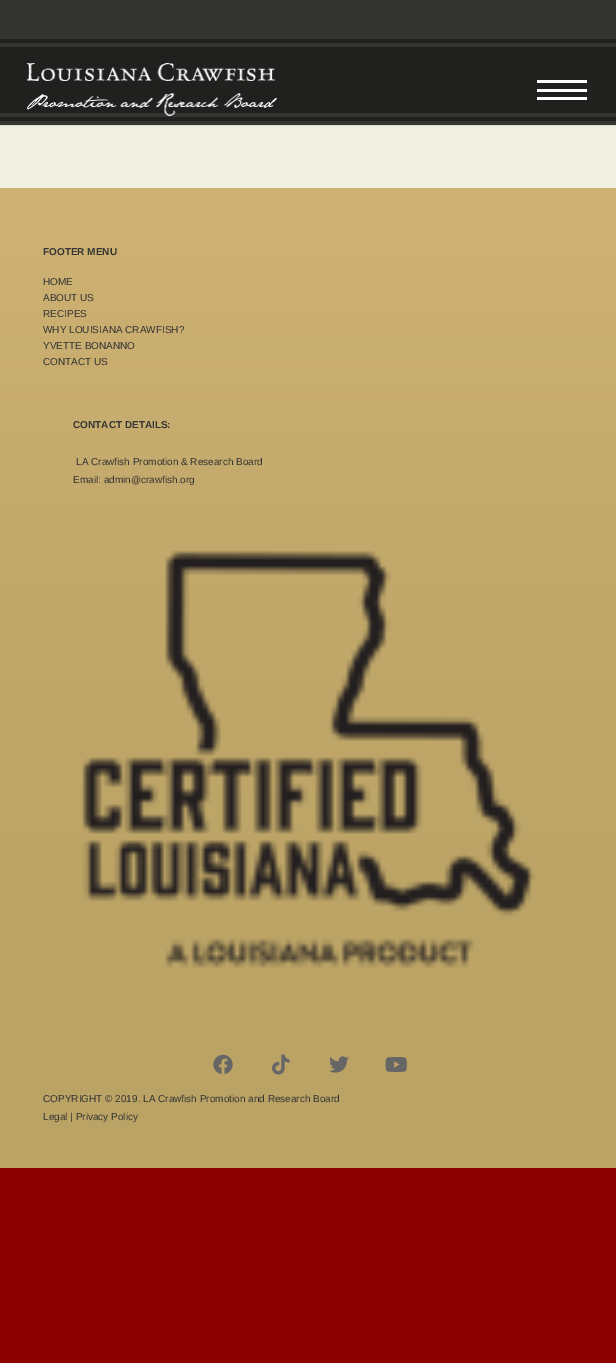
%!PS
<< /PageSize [616 1363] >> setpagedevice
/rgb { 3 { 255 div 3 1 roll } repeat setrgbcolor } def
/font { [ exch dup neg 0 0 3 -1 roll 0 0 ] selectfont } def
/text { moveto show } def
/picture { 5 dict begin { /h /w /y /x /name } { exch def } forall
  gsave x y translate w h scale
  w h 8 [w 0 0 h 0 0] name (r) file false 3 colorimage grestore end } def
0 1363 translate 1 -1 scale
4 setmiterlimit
139 0 0 rgb
0 0 616 1363 rectfill
52 52 51 rgb
0 0 616 39 rectfill
222 220 205 rgb
0 125 616 1 rectfill
32 32 31 rgb
0 39 616 82 rectfill
52 52 51 rgb
0 43 616 4 rectfill
0 113 616 4 rectfill
0 121 616 4 rectfill
(img_01.rgb) 27 63 248 18 picture
(img_02.rgb) 27 93 250 23 picture
255 255 255 rgb
537 89 50 3 rectfill
537 80 50 3 rectfill
537 97 50 3 rectfill
241 239 223 rgb
0 126 616 62 rectfill
(img_03.rgb) 0 188 616 980 picture
(img_04.rgb) 82 550 454 418 picture
(img_05.rgb) 213 1054 20 20 picture
(img_06.rgb) 272 1054 18 21 picture
(img_07.rgb) 329 1056 20 17 picture
(img_08.rgb) 385 1057 22 15 picture
/LiberationSans-Bold 10 font
52 52 51 rgb
(FOOTER MENU) 43 255 text
/LiberationSans-Regular 10 font
(HOME) 43 285 text
(ABOUT US) 43 301 text
(RECIPES) 43 317 text
(WHY LOUISIANA CRAWFISH?) 43 333 text
(YVETTE BONANNO) 43 349 text
(CONTACT US) 43 365 text
/LiberationSans-Bold 10 font
(CONTACT DETAILS:) 73 428 text
/LiberationSans-Regular 10 font
(LA Crawfish Promotion & Research Board) 76 465 text
(Email: admin@crawfish.org) 73 483 text
(COPYRIGHT © 2019. LA Crawfish Promotion and Research Board) 43 1102 text
(Legal | Privacy Policy) 43 1120 text
showpage
